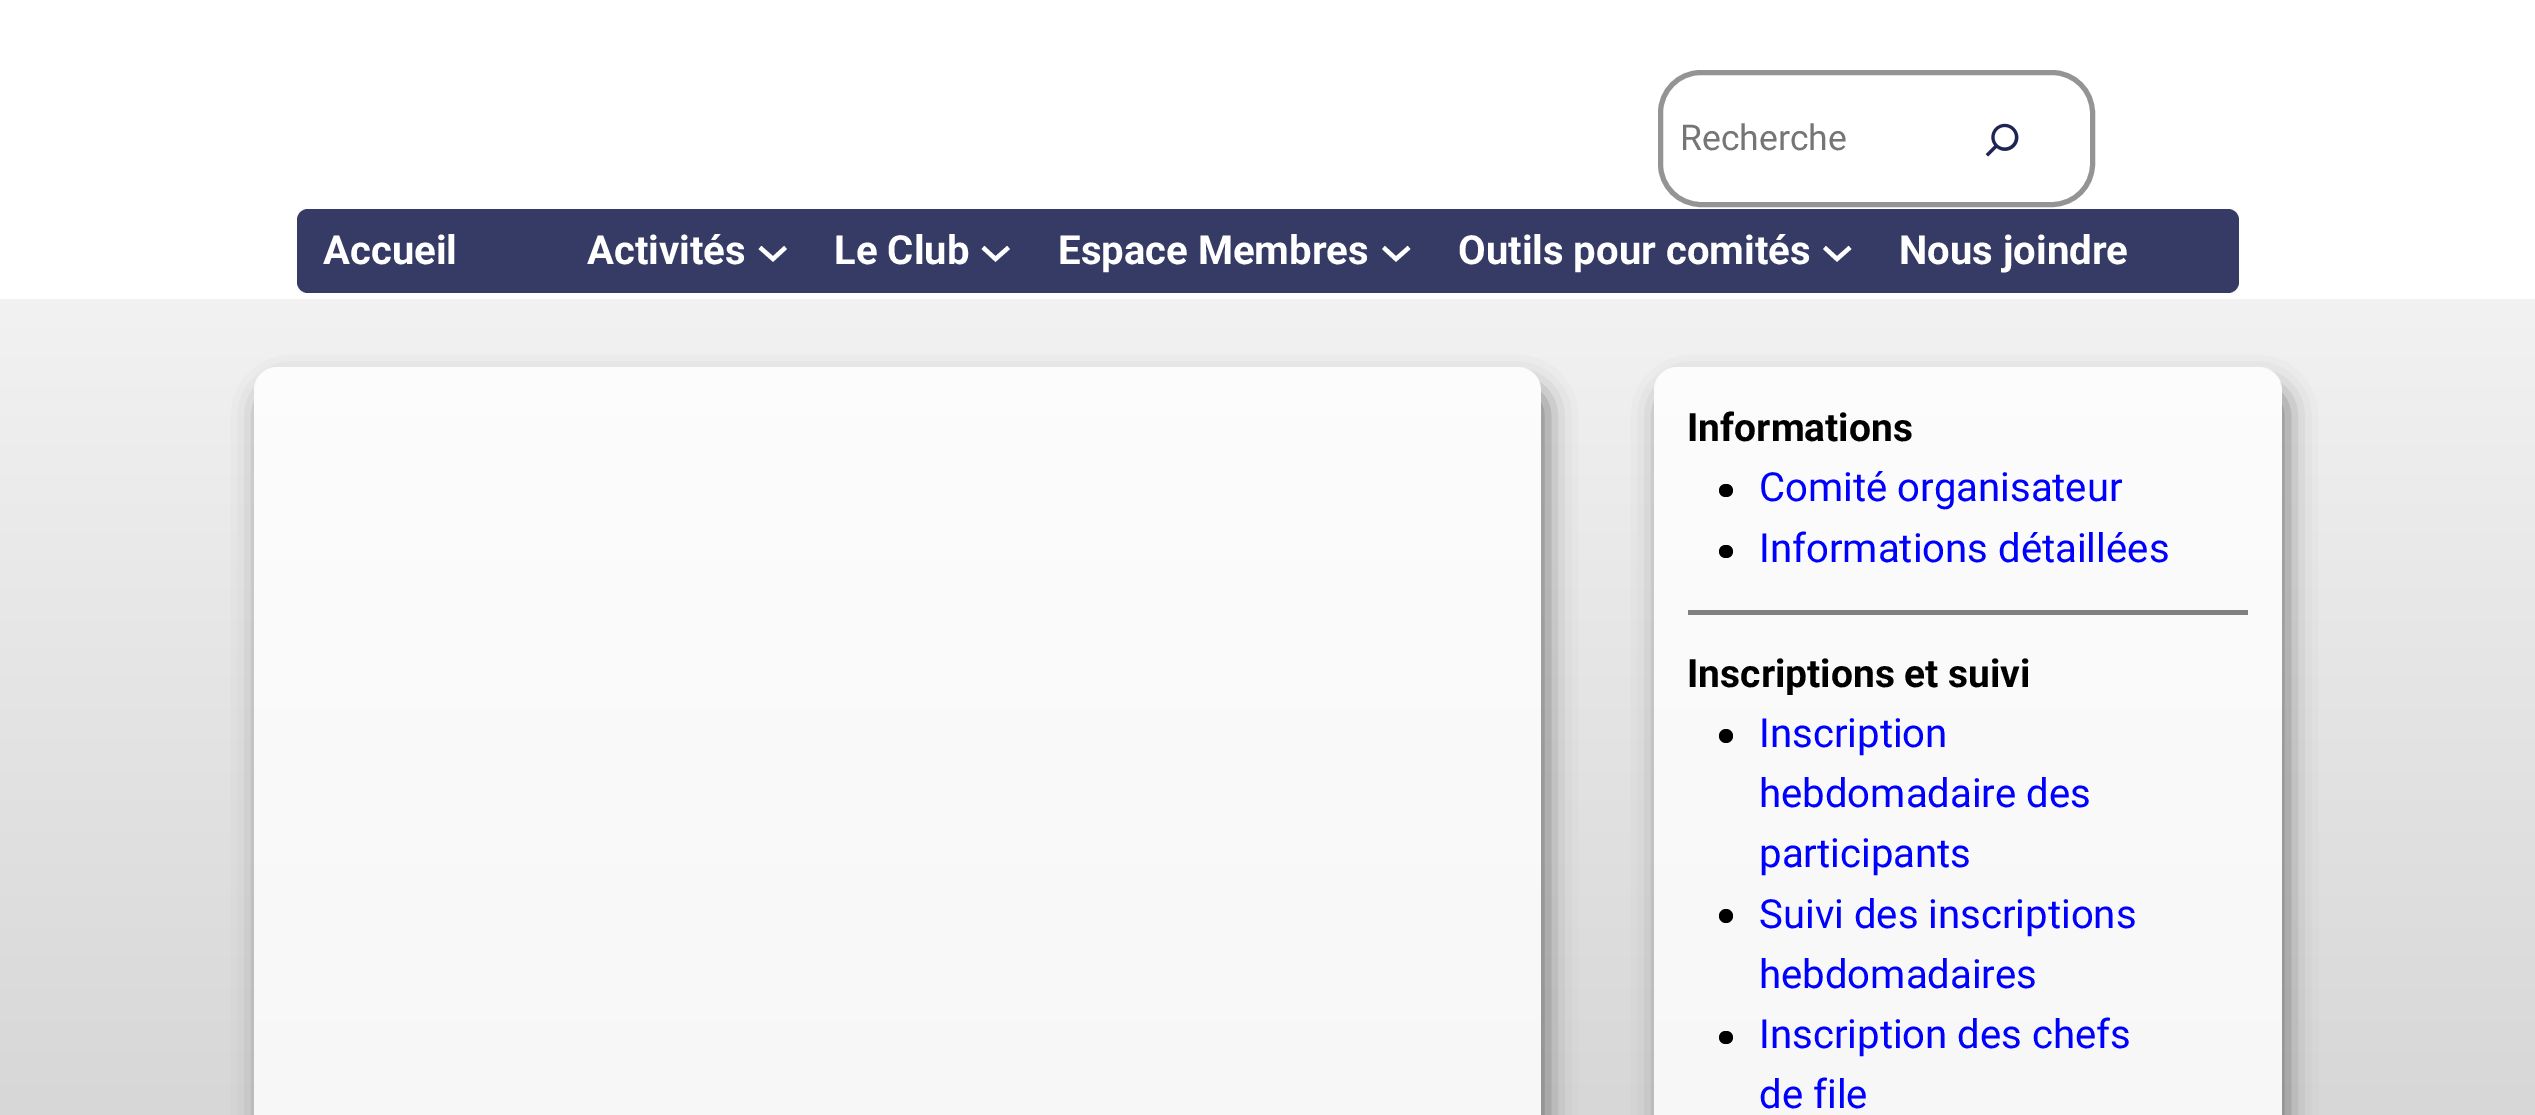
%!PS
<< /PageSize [2535 1115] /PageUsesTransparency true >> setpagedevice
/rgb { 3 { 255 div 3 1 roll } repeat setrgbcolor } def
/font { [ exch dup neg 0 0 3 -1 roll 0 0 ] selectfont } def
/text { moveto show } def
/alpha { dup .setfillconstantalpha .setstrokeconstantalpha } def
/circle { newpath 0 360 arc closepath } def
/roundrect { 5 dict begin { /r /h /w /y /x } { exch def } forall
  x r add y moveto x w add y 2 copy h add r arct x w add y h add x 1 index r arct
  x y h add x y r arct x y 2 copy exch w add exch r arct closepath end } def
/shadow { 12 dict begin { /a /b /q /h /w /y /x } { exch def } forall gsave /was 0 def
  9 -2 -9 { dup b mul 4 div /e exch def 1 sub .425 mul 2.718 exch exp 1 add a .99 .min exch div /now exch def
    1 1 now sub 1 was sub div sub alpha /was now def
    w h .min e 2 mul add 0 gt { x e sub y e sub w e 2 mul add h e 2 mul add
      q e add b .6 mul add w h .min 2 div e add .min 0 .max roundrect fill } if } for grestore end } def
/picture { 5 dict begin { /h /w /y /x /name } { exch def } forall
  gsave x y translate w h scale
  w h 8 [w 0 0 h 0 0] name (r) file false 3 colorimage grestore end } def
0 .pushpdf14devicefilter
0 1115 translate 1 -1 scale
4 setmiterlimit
255 255 255 rgb
0 0 2535 1115 rectfill
148 148 148 rgb
5 setlinewidth
1660.5 72.5 432 132 40.5 roundrect stroke
(img_01.rgb) 1985 123 34 34 picture
53 59 100 rgb
297 209 1942 84 11 roundrect fill
255 255 255 rgb
4.2 setlinewidth
760 247.5 moveto 13 11.5 rlineto 12.5 -11.5 rlineto stroke
983 247.5 moveto 12.5 11.5 rlineto 13 -11.5 rlineto stroke
1383.5 247.5 moveto 12.5 11.5 rlineto 13 -11.5 rlineto stroke
1824.5 247.5 moveto 12.5 11.5 rlineto 13 -11.5 rlineto stroke
gsave 0 299 moveto 2535 0 rlineto 0 816 rlineto -2535 0 rlineto closepath clip newpath
<< /ShadingType 2 /ColorSpace /DeviceRGB /Coords [1268 299 1268 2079] /Extend [true true] /Function << /FunctionType 2 /Domain [0 1] /C0 [0.949 0.949 0.949] /C1 [0.718 0.718 0.718] /N 1 >> >> shfill grestore
gsave
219 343 moveto 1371 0 rlineto 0 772 rlineto -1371 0 rlineto closepath 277 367 moveto 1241 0 rlineto 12.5 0 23 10.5 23 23 rcurveto 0 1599 rlineto 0 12.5 -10.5 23 -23 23 rcurveto -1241 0 rlineto -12.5 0 -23 -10.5 -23 -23 rcurveto 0 -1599 rlineto 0 -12.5 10.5 -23 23 -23 rcurveto closepath eoclip newpath
0 0 0 rgb
261 385 1287 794 23 13.5 0.44 shadow
grestore
0.8 alpha
254 367 1287 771 23 roundrect fill
gsave
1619 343 moveto 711 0 rlineto 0 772 rlineto -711 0 rlineto closepath 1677 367 moveto 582 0 rlineto 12.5 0 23 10.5 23 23 rcurveto 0 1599 rlineto 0 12.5 -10.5 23 -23 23 rcurveto -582 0 rlineto -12.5 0 -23 -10.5 -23 -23 rcurveto 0 -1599 rlineto 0 -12.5 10.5 -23 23 -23 rcurveto closepath eoclip newpath
1 alpha
0 0 0 rgb
1661 385 627 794 23 13.5 0.44 shadow
grestore
1654 367 628 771 23 roundrect fill
1 alpha
0 0 0 rgb
1719 484 14 13 6.5 roundrect fill
1719 545 14 13 6.5 roundrect fill
128 128 128 rgb
1688 610 560 5 rectfill
0 0 0 rgb
1726 736 7 circle fill
1726 916 7 circle fill
1719 1031 14 13 6.5 roundrect fill
/Roboto-Regular 35.5 font
117 117 117 rgb
(Recherche) 1680 150 text
/Roboto-Bold 40.1 font
255 255 255 rgb
(Accueil) 323 264 text
(Activités) 587 264 text
(Le Club) 834 264 text
(Espace Membres) 1058 264 text
(Outils pour comités) 1458 264 text
(Nous joindre) 1899 264 text
/Roboto-Bold 39 font
0 0 0 rgb
(Informations) 1687 441 text
/Roboto-Regular 40.1 font
0 0 255 rgb
(Comité organisateur) 1759 501 text
(Informations détaillées) 1759 562 text
/Roboto-Bold 39 font
0 0 0 rgb
(Inscriptions et suivi) 1687 687 text
/Roboto-Regular 40.1 font
0 0 255 rgb
(Inscription) 1759 747 text
(hebdomadaire des) 1759 807 text
(participants) 1759 867 text
(Suivi des inscriptions) 1759 928 text
(hebdomadaires) 1759 988 text
(Inscription des chefs) 1759 1048 text
(de file) 1759 1108 text
.poppdf14devicefilter showpage
